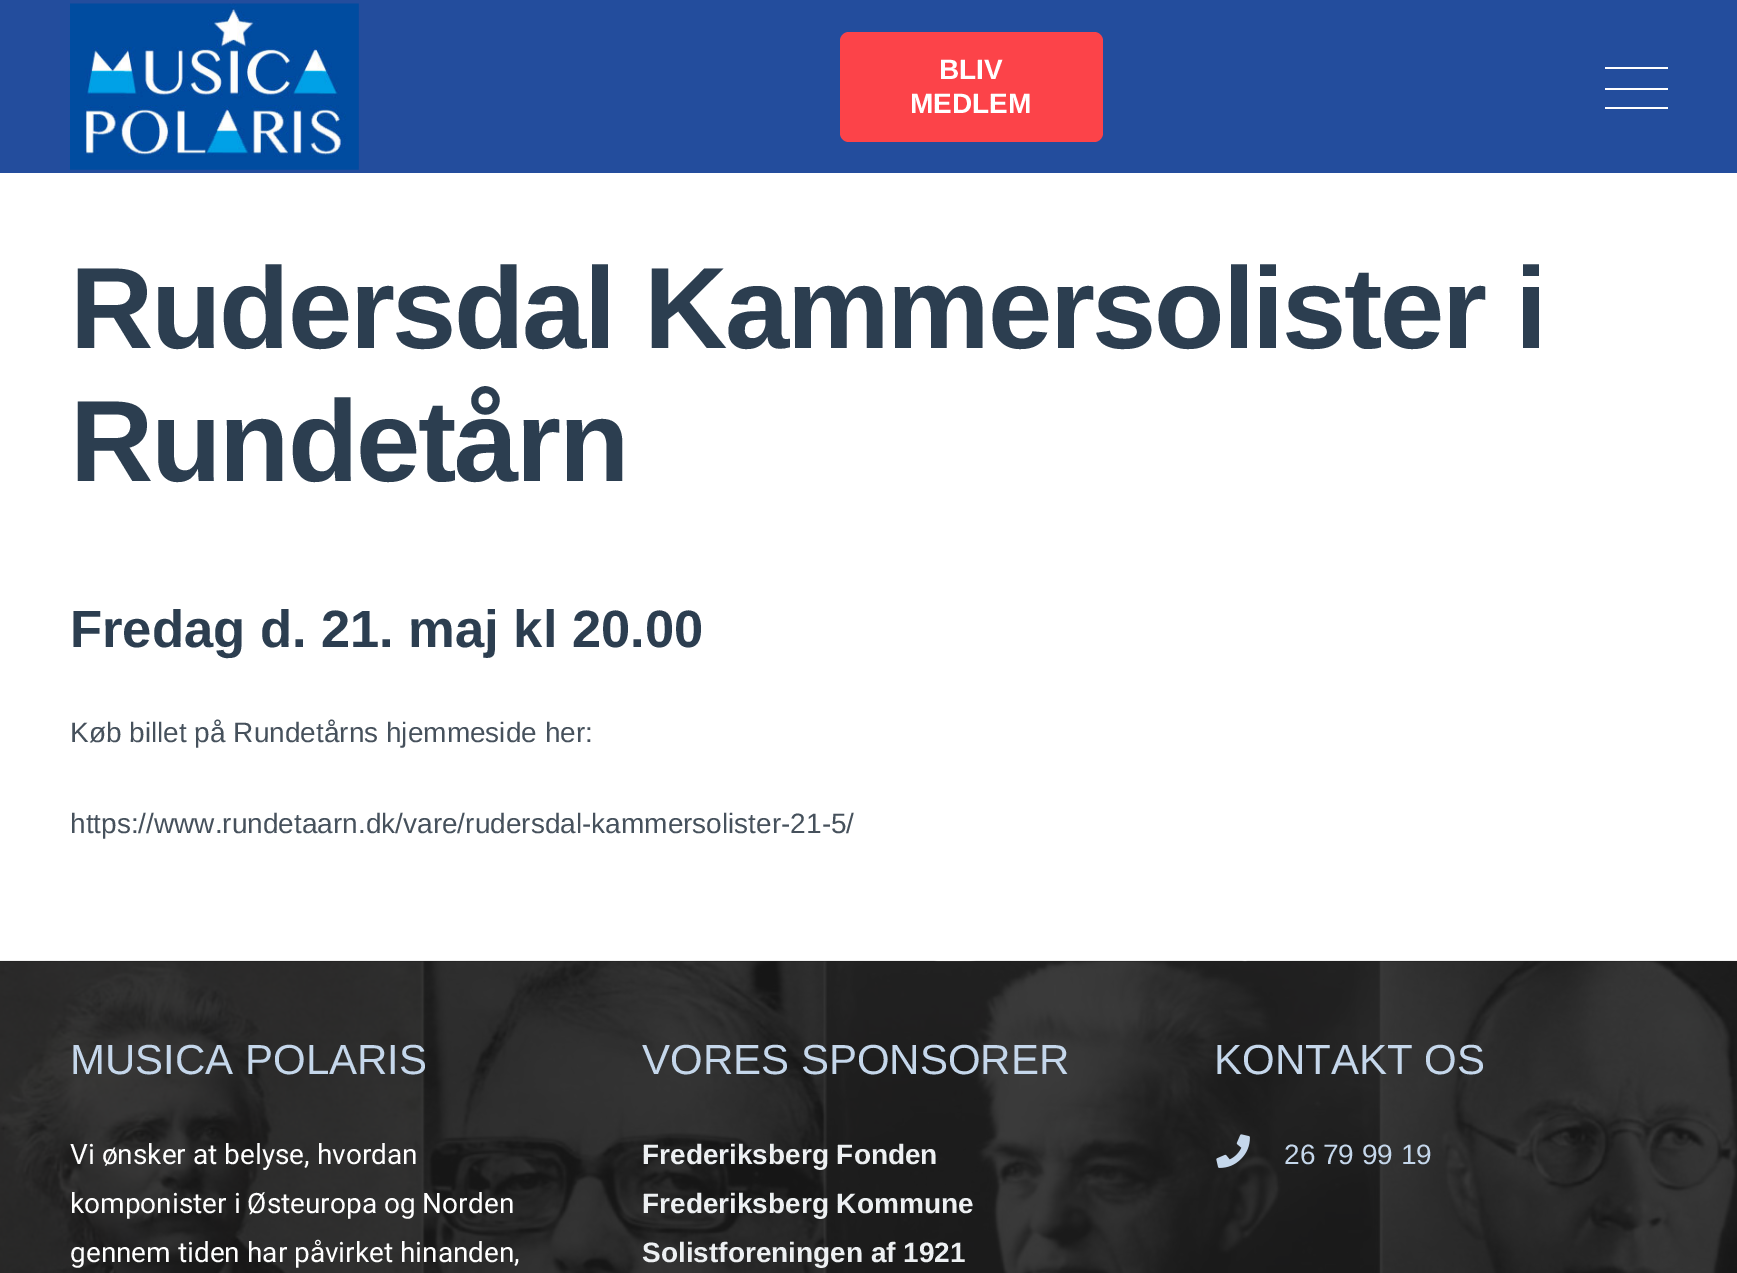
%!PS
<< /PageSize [1737 1273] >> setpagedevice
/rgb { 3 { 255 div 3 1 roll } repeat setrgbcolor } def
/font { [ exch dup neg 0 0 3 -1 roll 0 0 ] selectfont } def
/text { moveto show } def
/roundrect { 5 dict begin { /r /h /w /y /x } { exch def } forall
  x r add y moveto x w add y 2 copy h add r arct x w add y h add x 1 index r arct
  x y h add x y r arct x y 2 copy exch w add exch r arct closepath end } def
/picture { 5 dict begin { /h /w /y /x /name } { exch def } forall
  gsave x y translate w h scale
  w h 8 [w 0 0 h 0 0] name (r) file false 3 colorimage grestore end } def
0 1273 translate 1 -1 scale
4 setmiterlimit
255 255 255 rgb
0 0 1737 1273 rectfill
35 77 157 rgb
0 0 1737 173 rectfill
(img_01.rgb) 70 3 289 167 picture
252 67 73 rgb
840 32 263 110 9 roundrect fill
255 255 255 rgb
1605 88 63 2 rectfill
1605 67 63 2 rectfill
1605 107 63 2 rectfill
(img_02.rgb) 0 960 1737 313 picture
(img_03.rgb) 1216 1134 34 34 picture
/LiberationSans-Bold 28 font
(BLIV) 939 79 text
(MEDLEM) 910 113 text
/LiberationSans-Bold 115.5 font
44 62 80 rgb
70 348 moveto -2.3 0 (Rudersdal Kammersolister i) ashow
70 481 moveto -2.3 0 (Rundetårn) ashow
/LiberationSans-Bold 52.5 font
(Fredag d. 21. maj kl 20.00) 70 647 text
/LiberationSans-Regular 28 font
70 81 92 rgb
(Køb billet på Rundetårns hjemmeside her:) 70 742 text
(https://www.rundetaarn.dk/vare/rudersdal-kammersolister-21-5/) 70 833 text
/LiberationSans-Regular 42 font
197 215 235 rgb
(MUSICA POLARIS) 70 1074 text
/Roboto-Regular 28 font
255 255 255 rgb
(Vi ønsker at belyse, hvordan) 70 1164 text
(komponister i Østeuropa og Norden) 70 1213 text
(gennem tiden har påvirket hinanden,) 70 1262 text
/LiberationSans-Regular 42 font
197 215 235 rgb
(VORES SPONSORER) 642 1074 text
/LiberationSans-Bold 28 font
237 240 242 rgb
(Frederiksberg Fonden) 642 1164 text
(Frederiksberg Kommune) 642 1213 text
(Solistforeningen af 1921) 642 1262 text
/LiberationSans-Regular 42 font
197 215 235 rgb
(KONTAKT OS) 1214 1074 text
/LiberationSans-Regular 28 font
(26 79 99 19) 1284 1164 text
showpage
